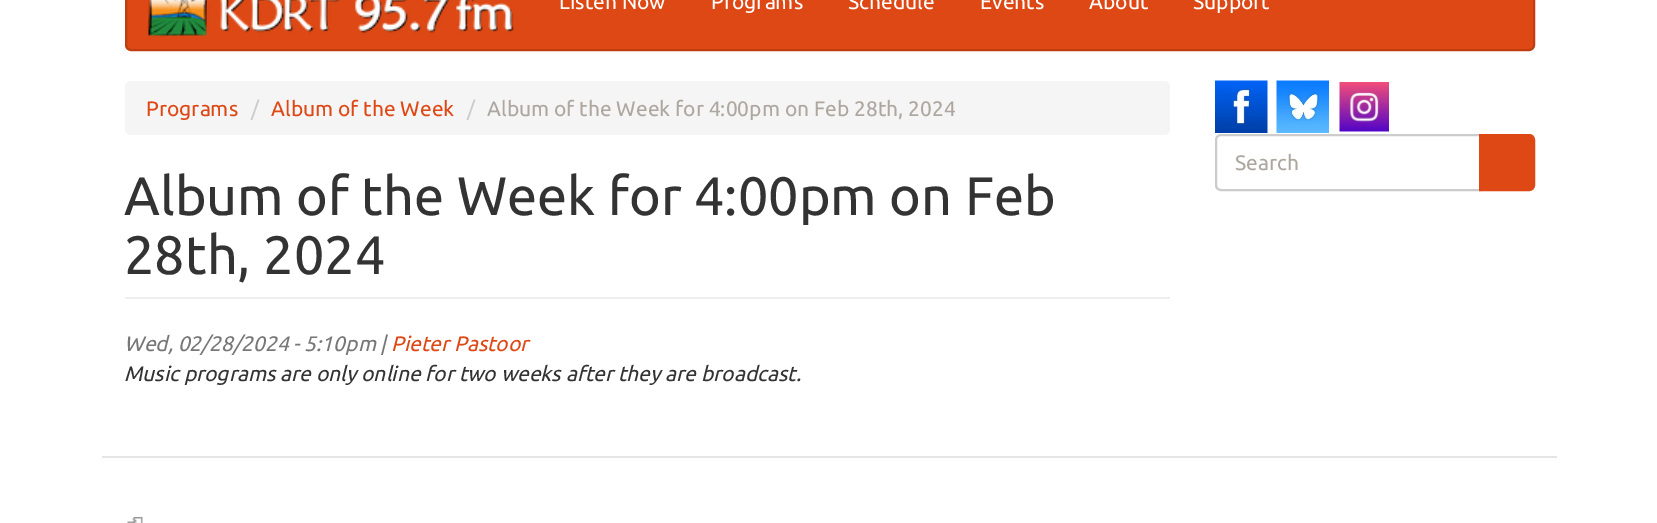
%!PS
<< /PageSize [1657 523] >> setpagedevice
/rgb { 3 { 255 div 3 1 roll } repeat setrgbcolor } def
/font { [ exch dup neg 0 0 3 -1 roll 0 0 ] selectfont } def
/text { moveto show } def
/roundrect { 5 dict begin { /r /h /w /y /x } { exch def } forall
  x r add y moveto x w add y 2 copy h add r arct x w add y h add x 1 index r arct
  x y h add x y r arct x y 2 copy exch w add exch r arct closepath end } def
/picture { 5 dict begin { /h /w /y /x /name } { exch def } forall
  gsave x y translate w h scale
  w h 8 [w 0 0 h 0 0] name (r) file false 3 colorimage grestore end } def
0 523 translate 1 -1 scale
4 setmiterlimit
255 255 255 rgb
0 0 1657 523 rectfill
221 72 20 rgb
126 -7 1408 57 5 roundrect gsave fill grestore
191 62 17 rgb
2 setlinewidth
stroke
(img_01.rgb) 148 0 366 37 picture
245 245 245 rgb
125 81 1045 54 6 roundrect fill
238 238 238 rgb
125 297 1045 2 rectfill
(img_02.rgb) 1215 80 53 53 picture
(img_03.rgb) 1276 80 53 53 picture
(img_04.rgb) 1339 82 50 50 picture
204 204 204 rgb
1221 135 moveto 259 0 rlineto 0 55 rlineto -259 0 rlineto -3 0 -5 -2 -5 -5 rcurveto 0 -45 rlineto 0 -3 2 -5 5 -5 rcurveto closepath stroke
221 72 20 rgb
1480 135 moveto 49 0 rlineto 3 0 5 2 5 5 rcurveto 0 45 rlineto 0 3 -2 5 -5 5 rcurveto -49 0 rlineto closepath gsave fill grestore
stroke
229 229 229 rgb
102 456 1455 2 rectfill
(img_05.rgb) 127 517 16 6 picture
/Ubuntu-Regular 21 font
255 255 255 rgb
(Listen Now) 559 9 text
(Programs) 711 9 text
(Schedule) 848 9 text
(Events) 980 9 text
(About) 1089 9 text
(Support) 1193 9 text
221 72 20 rgb
(Programs) 146 116 text
204 204 204 rgb
(/) 251 116 text
221 72 20 rgb
(Album of the Week) 271 116 text
204 204 204 rgb
(/) 467 116 text
174 167 159 rgb
(Album of the Week for 4:00pm on Feb 28th, 2024) 487 116 text
/Ubuntu-Regular 54 font
51 51 51 rgb
(Album of the Week for 4:00pm on Feb) 124 215 text
(28th, 2024) 124 274 text
/Ubuntu-Italic 21 font
119 119 119 rgb
(Wed, 02/28/2024 - 5:10pm |) 124 351 text
221 72 20 rgb
(Pieter Pastoor) 391 351 text
51 51 51 rgb
(Music programs are only online for two weeks after they are broadcast.) 124 381 text
/Ubuntu-Regular 21 font
174 167 159 rgb
(Search) 1235 170 text
showpage
